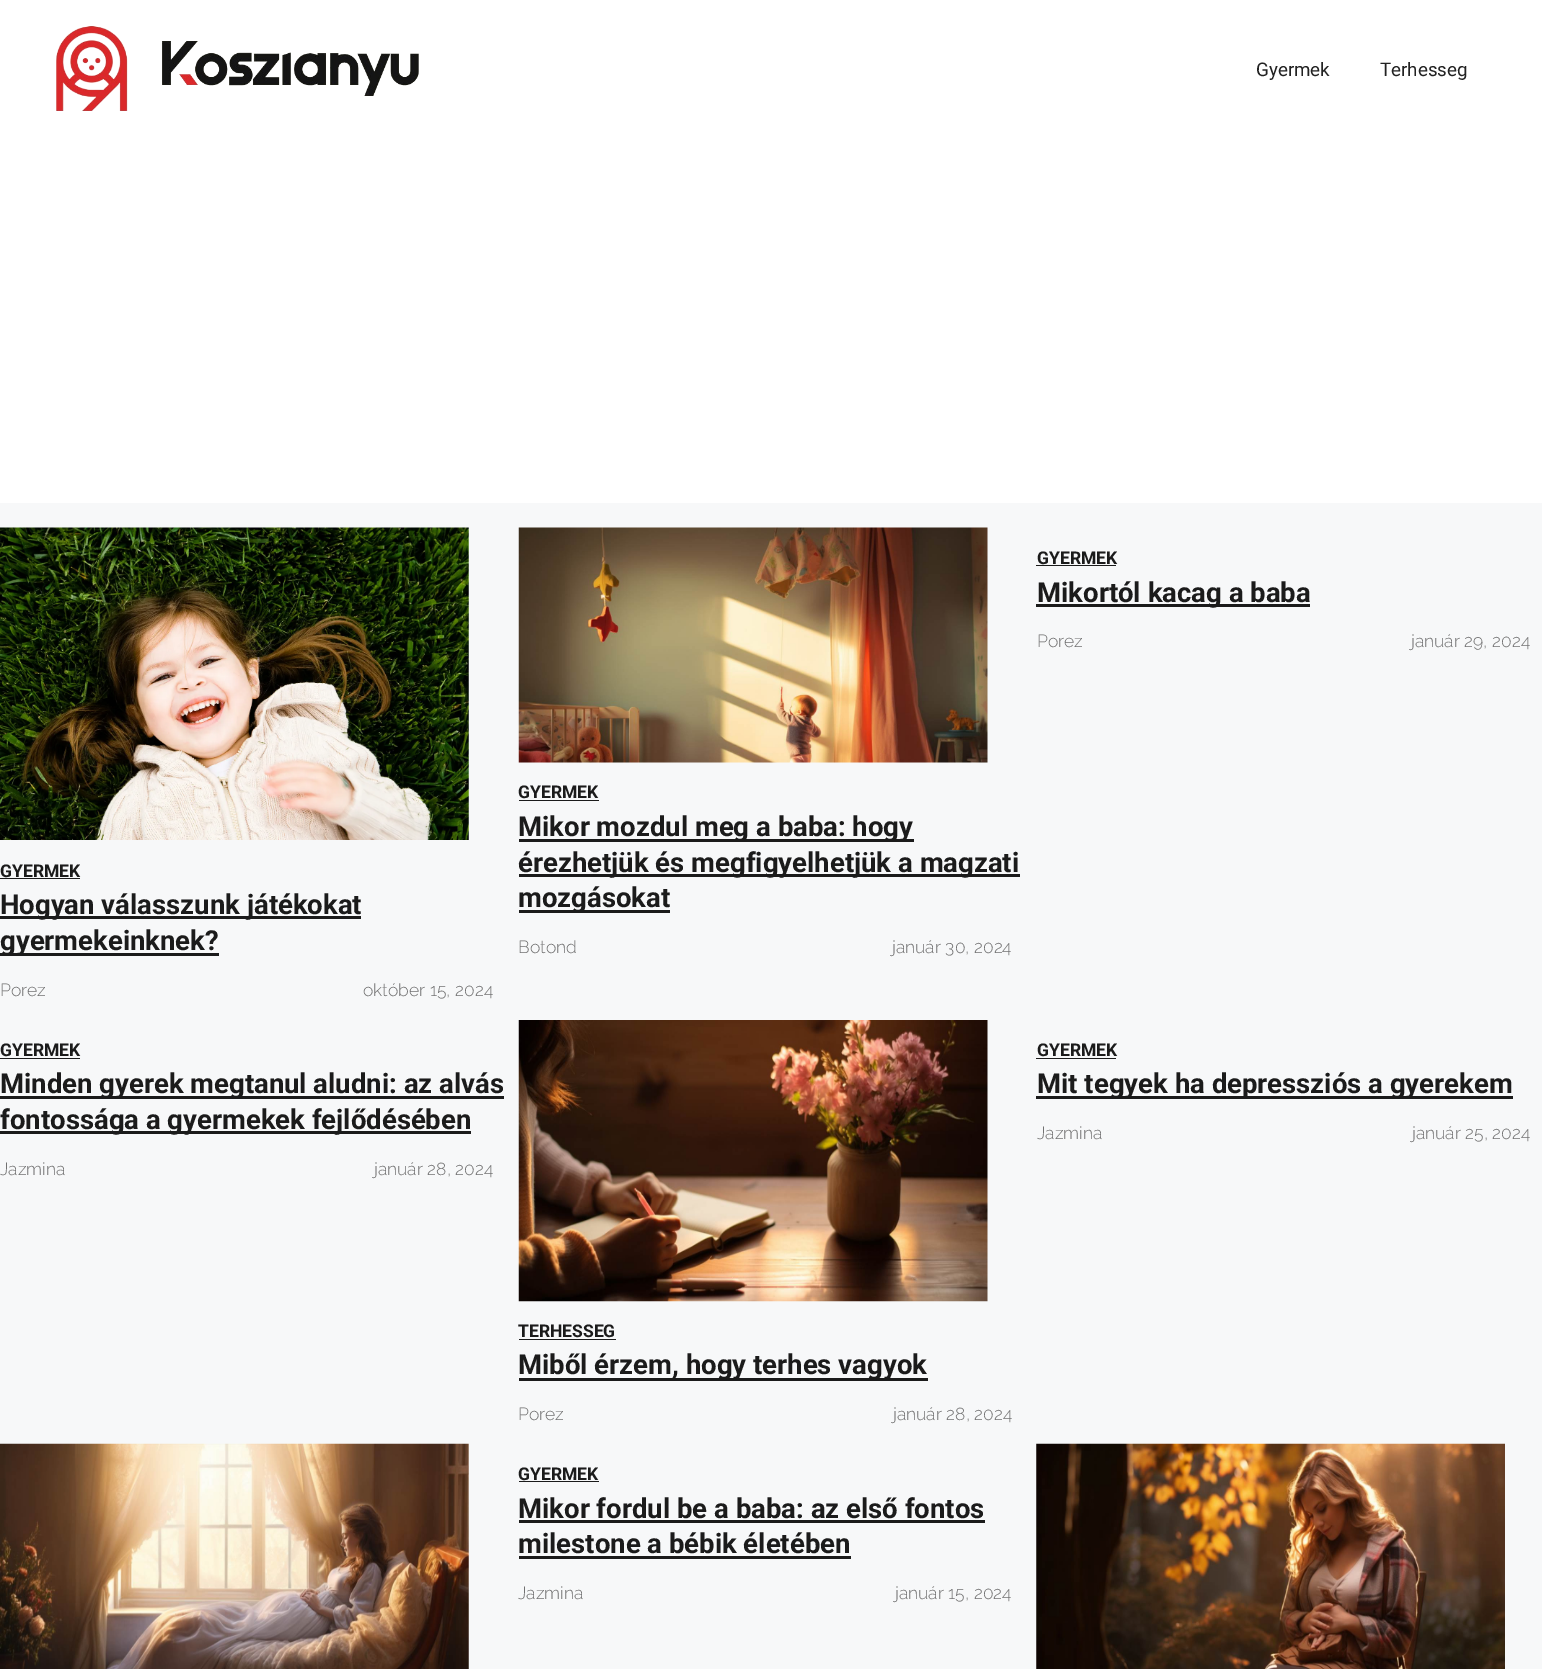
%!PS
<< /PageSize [1542 1669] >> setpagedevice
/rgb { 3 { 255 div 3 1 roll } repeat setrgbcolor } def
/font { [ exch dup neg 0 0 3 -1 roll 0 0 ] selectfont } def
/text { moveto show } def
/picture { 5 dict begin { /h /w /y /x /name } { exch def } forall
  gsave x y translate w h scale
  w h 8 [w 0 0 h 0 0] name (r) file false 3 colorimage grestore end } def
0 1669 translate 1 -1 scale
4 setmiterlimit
247 248 249 rgb
0 0 1542 1669 rectfill
255 255 255 rgb
0 0 1542 503 rectfill
(img_01.rgb) 56 26 363 85 picture
27 27 27 rgb
1036 565 80 1 rectfill
1036 604 274 3 rectfill
(img_02.rgb) 0 527 469 313 picture
0 878 80 1 rectfill
0 916 361 3 rectfill
0 953 219 3 rectfill
(img_03.rgb) 518 527 470 236 picture
519 800 80 1 rectfill
519 839 395 3 rectfill
519 874 501 3 rectfill
519 910 151 3 rectfill
0 1058 80 1 rectfill
0 1096 504 3 rectfill
0 1131 471 3 rectfill
1036 1058 80 1 rectfill
1036 1096 477 3 rectfill
(img_04.rgb) 518 1020 470 282 picture
519 1339 97 1 rectfill
519 1378 409 3 rectfill
(img_05.rgb) 0 1443 469 226 picture
519 1481 80 1 rectfill
519 1520 466 3 rectfill
519 1556 332 3 rectfill
(img_06.rgb) 1036 1443 469 226 picture
/Roboto-Regular 18.75 font
34 34 34 rgb
(Gyermek) 1256 76 text
(Terhesseg) 1380 76 text
/Roboto-Bold 17.5 font
27 27 27 rgb
(GYERMEK) 1037 564 text
/Roboto-Bold 27.5 font
(Mikortól kacag a baba) 1037 602 text
/Raleway-Light 17.5 font
113 113 113 rgb
(Porez) 1037 647 text
(január 29, 2024) 1411 647 text
/Roboto-Bold 17.5 font
27 27 27 rgb
(GYERMEK) 0 877 text
/Roboto-Bold 27.5 font
(Hogyan válasszunk játékokat) 0 914 text
(gyermekeinknek?) 0 950 text
/Raleway-Light 17.5 font
113 113 113 rgb
(Porez) 0 996 text
(október 15, 2024) 363 996 text
/Roboto-Bold 17.5 font
27 27 27 rgb
(GYERMEK) 518 798 text
/Roboto-Bold 27.5 font
(Mikor mozdul meg a baba: hogy) 518 836 text
(érezhetjük és megfigyelhetjük a magzati) 518 872 text
(mozgásokat) 518 907 text
/Raleway-Light 17.5 font
113 113 113 rgb
(Botond) 518 953 text
(január 30, 2024) 892 953 text
/Roboto-Bold 17.5 font
27 27 27 rgb
(GYERMEK) 0 1056 text
/Roboto-Bold 27.5 font
(Minden gyerek megtanul aludni: az alvás) 0 1093 text
(fontossága a gyermekek fejlődésében) 0 1129 text
/Raleway-Light 17.5 font
113 113 113 rgb
(Jazmina) 0 1175 text
(január 28, 2024) 374 1175 text
/Roboto-Bold 17.5 font
27 27 27 rgb
(GYERMEK) 1037 1056 text
/Roboto-Bold 27.5 font
(Mit tegyek ha depressziós a gyerekem) 1037 1093 text
/Raleway-Light 17.5 font
113 113 113 rgb
(Jazmina) 1037 1139 text
(január 25, 2024) 1412 1139 text
/Roboto-Bold 17.5 font
27 27 27 rgb
(TERHESSEG) 518 1337 text
/Roboto-Bold 27.5 font
(Miből érzem, hogy terhes vagyok) 518 1374 text
/Raleway-Light 17.5 font
113 113 113 rgb
(Porez) 518 1420 text
(január 28, 2024) 893 1420 text
/Roboto-Bold 17.5 font
27 27 27 rgb
(GYERMEK) 518 1480 text
/Roboto-Bold 27.5 font
(Mikor fordul be a baba: az első fontos) 518 1518 text
(milestone a bébik életében) 518 1553 text
/Raleway-Light 17.5 font
113 113 113 rgb
(Jazmina) 518 1599 text
(január 15, 2024) 895 1599 text
showpage
